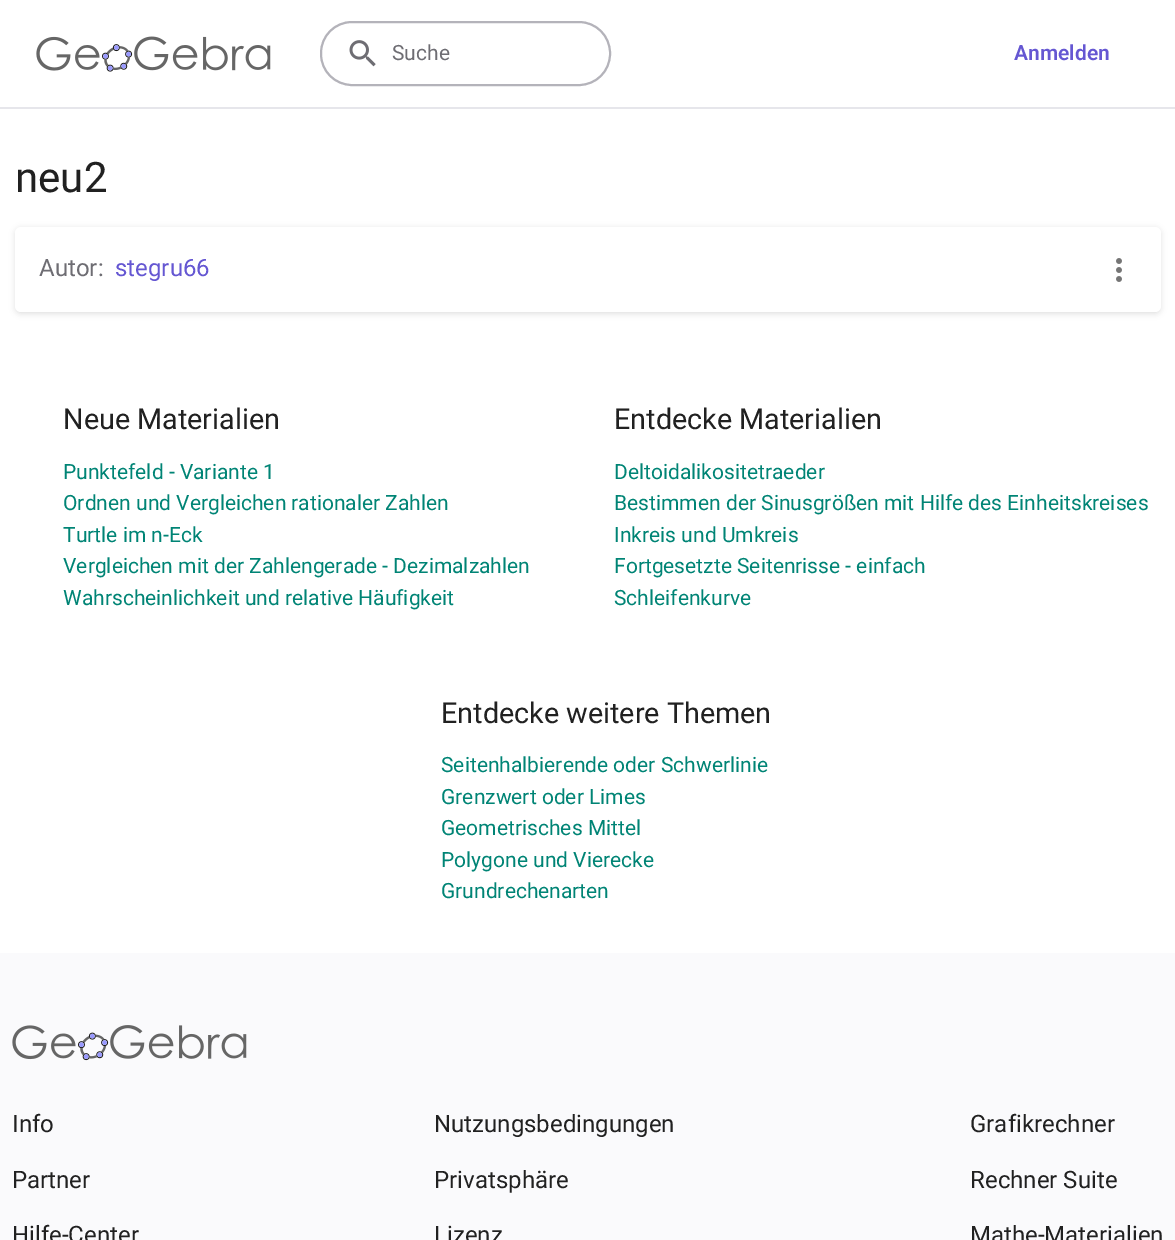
%!PS
<< /PageSize [1175 1240] /PageUsesTransparency true >> setpagedevice
/rgb { 3 { 255 div 3 1 roll } repeat setrgbcolor } def
/font { [ exch dup neg 0 0 3 -1 roll 0 0 ] selectfont } def
/text { moveto show } def
/alpha { dup .setfillconstantalpha .setstrokeconstantalpha } def
/roundrect { 5 dict begin { /r /h /w /y /x } { exch def } forall
  x r add y moveto x w add y 2 copy h add r arct x w add y h add x 1 index r arct
  x y h add x y r arct x y 2 copy exch w add exch r arct closepath end } def
/shadow { 12 dict begin { /a /b /q /h /w /y /x } { exch def } forall gsave /was 0 def
  9 -2 -9 { dup b mul 4 div /e exch def 1 sub .425 mul 2.718 exch exp 1 add a .99 .min exch div /now exch def
    1 1 now sub 1 was sub div sub alpha /was now def
    w h .min e 2 mul add 0 gt { x e sub y e sub w e 2 mul add h e 2 mul add
      q e add b .6 mul add w h .min 2 div e add .min 0 .max roundrect fill } if } for grestore end } def
/picture { 5 dict begin { /h /w /y /x /name } { exch def } forall
  gsave x y translate w h scale
  w h 8 [w 0 0 h 0 0] name (r) file false 3 colorimage grestore end } def
0 .pushpdf14devicefilter
0 1240 translate 1 -1 scale
4 setmiterlimit
255 255 255 rgb
0 0 1175 1240 rectfill
230 230 235 rgb
0 107 1175 2 rectfill
(img_01.rgb) 36 36 235 36 picture
180 179 186 rgb
2 setlinewidth
321 22 289 63 31 roundrect stroke
(img_02.rgb) 349 40 27 27 picture
28 28 31 rgb
15 228 1146 86 6 3 0.14 shadow
255 255 255 rgb
15 227 1146 85 6 roundrect fill
(img_03.rgb) 1116 258 6 24 picture
250 250 252 rgb
0 953 1175 287 rectfill
(img_04.rgb) 12 1025 235 36 picture
/Roboto-Regular 21 font
110 109 115 rgb
(Suche) 392 60 text
/Roboto-SemiBold 21 font
101 87 210 rgb
(Anmelden) 1014 60 text
/Roboto-Regular 42 font
33 33 33 rgb
(neu2) 15 192 text
/Roboto-Regular 24 font
110 109 115 rgb
(Autor:) 39 276 text
101 87 210 rgb
(stegru66) 115 276 text
/Roboto-Regular 28.75 font
33 33 33 rgb
(Neue Materialien) 63 429 text
/Roboto-Regular 21 font
0 132 117 rgb
(Punktefeld - Variante 1) 63 479 text
(Ordnen und Vergleichen rationaler Zahlen) 63 510 text
(Turtle im n-Eck) 63 542 text
(Vergleichen mit der Zahlengerade - Dezimalzahlen) 63 573 text
(Wahrscheinlichkeit und relative Häufigkeit) 63 605 text
/Roboto-Regular 28.75 font
33 33 33 rgb
(Entdecke Materialien) 614 429 text
/Roboto-Regular 21 font
0 132 117 rgb
(Deltoidalikositetraeder) 614 479 text
(Bestimmen der Sinusgrößen mit Hilfe des Einheitskreises) 614 510 text
(Inkreis und Umkreis) 614 542 text
(Fortgesetzte Seitenrisse - einfach) 614 573 text
(Schleifenkurve) 614 605 text
/Roboto-Regular 28.75 font
33 33 33 rgb
(Entdecke weitere Themen) 441 723 text
/Roboto-Regular 21 font
0 132 117 rgb
(Seitenhalbierende oder Schwerlinie) 441 772 text
(Grenzwert oder Limes) 441 804 text
(Geometrisches Mittel) 441 835 text
(Polygone und Vierecke) 441 867 text
(Grundrechenarten) 441 898 text
/Roboto-Regular 24 font
33 33 33 rgb
(Info) 12 1132 text
(Partner) 12 1188 text
(Hilfe-Center) 12 1243 text
(Nutzungsbedingungen) 434 1132 text
(Privatsphäre) 434 1188 text
(Lizenz) 434 1243 text
(Grafikrechner) 970 1132 text
(Rechner Suite) 970 1188 text
(Mathe-Materialien) 970 1243 text
.poppdf14devicefilter showpage
